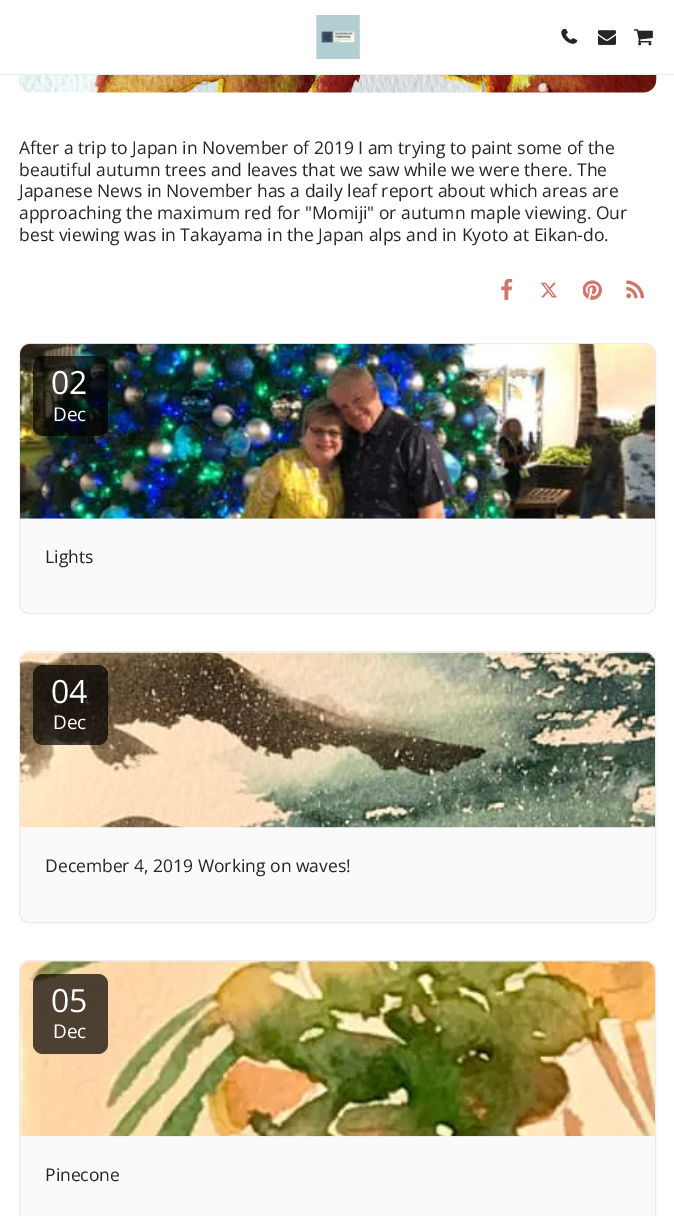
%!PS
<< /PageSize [674 1216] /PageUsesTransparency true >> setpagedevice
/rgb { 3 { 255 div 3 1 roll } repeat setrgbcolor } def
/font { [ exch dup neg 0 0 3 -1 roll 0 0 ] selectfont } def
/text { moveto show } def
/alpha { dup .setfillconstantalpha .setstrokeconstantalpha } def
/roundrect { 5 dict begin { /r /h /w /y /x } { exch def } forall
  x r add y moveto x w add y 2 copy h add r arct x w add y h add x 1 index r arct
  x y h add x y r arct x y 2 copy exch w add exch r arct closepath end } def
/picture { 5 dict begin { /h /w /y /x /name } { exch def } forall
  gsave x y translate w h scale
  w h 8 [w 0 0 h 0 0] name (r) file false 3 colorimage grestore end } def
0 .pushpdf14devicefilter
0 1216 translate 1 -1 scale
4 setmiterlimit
255 255 255 rgb
0 0 674 1216 rectfill
235 235 235 rgb
0 74 674 1 rectfill
(img_01.rgb) 316 15 44 44 picture
(img_02.rgb) 563 28 15 16 picture
(img_03.rgb) 561 29 14 15 picture
(img_04.rgb) 598 30 18 15 picture
(img_05.rgb) 634 29 19 17 picture
(img_06.rgb) 18 75 639 18 picture
(img_07.rgb) 501 279 12 21 picture
(img_08.rgb) 540 282 17 16 picture
(img_09.rgb) 583 280 19 20 picture
(img_10.rgb) 626 280 18 19 picture
250 250 250 rgb
19.5 343.5 636 270 9.5 roundrect gsave fill grestore
235 235 235 rgb
stroke
(img_11.rgb) 20 343 635 176 picture
0.7 alpha
0 0 0 rgb
33 356 75 80 10 roundrect fill
1 alpha
250 250 250 rgb
19.5 651.5 636 271 9.5 roundrect gsave fill grestore
235 235 235 rgb
stroke
(img_12.rgb) 20 652 635 176 picture
0.7 alpha
0 0 0 rgb
33 665 75 80 10 roundrect fill
1 alpha
250 250 250 rgb
19.5 960.5 636 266 9.5 roundrect gsave fill grestore
235 235 235 rgb
stroke
(img_13.rgb) 20 961 635 176 picture
0.7 alpha
0 0 0 rgb
33 974 75 80 10 roundrect fill
/OpenSans-Regular 17.5 font
1 alpha
37 37 37 rgb
(After a trip to Japan in November of 2019 I am trying to paint some of the) 19 154 text
(beautiful autumn trees and leaves that we saw while we were there. The) 19 176 text
(Japanese News in November has a daily leaf report about which areas are) 19 197 text
(approaching the maximum red for "Momiji" or autumn maple viewing. Our) 19 219 text
(best viewing was in Takayama in the Japan alps and in Kyoto at Eikan-do.) 19 241 text
/OpenSans-Regular 32 font
255 255 255 rgb
(02) 51 394 text
/OpenSans-Regular 19 font
(Dec) 53 421 text
/OpenSans-Regular 17.5 font
37 37 37 rgb
(Lights) 45 563 text
/OpenSans-Regular 32 font
255 255 255 rgb
(04) 51 703 text
/OpenSans-Regular 19 font
(Dec) 53 729 text
/OpenSans-Regular 17.5 font
37 37 37 rgb
(December 4, 2019 Working on waves!) 45 872 text
/OpenSans-Regular 32 font
255 255 255 rgb
(05) 51 1012 text
/OpenSans-Regular 19 font
(Dec) 53 1038 text
/OpenSans-Regular 17.5 font
37 37 37 rgb
(Pinecone) 45 1181 text
.poppdf14devicefilter showpage
